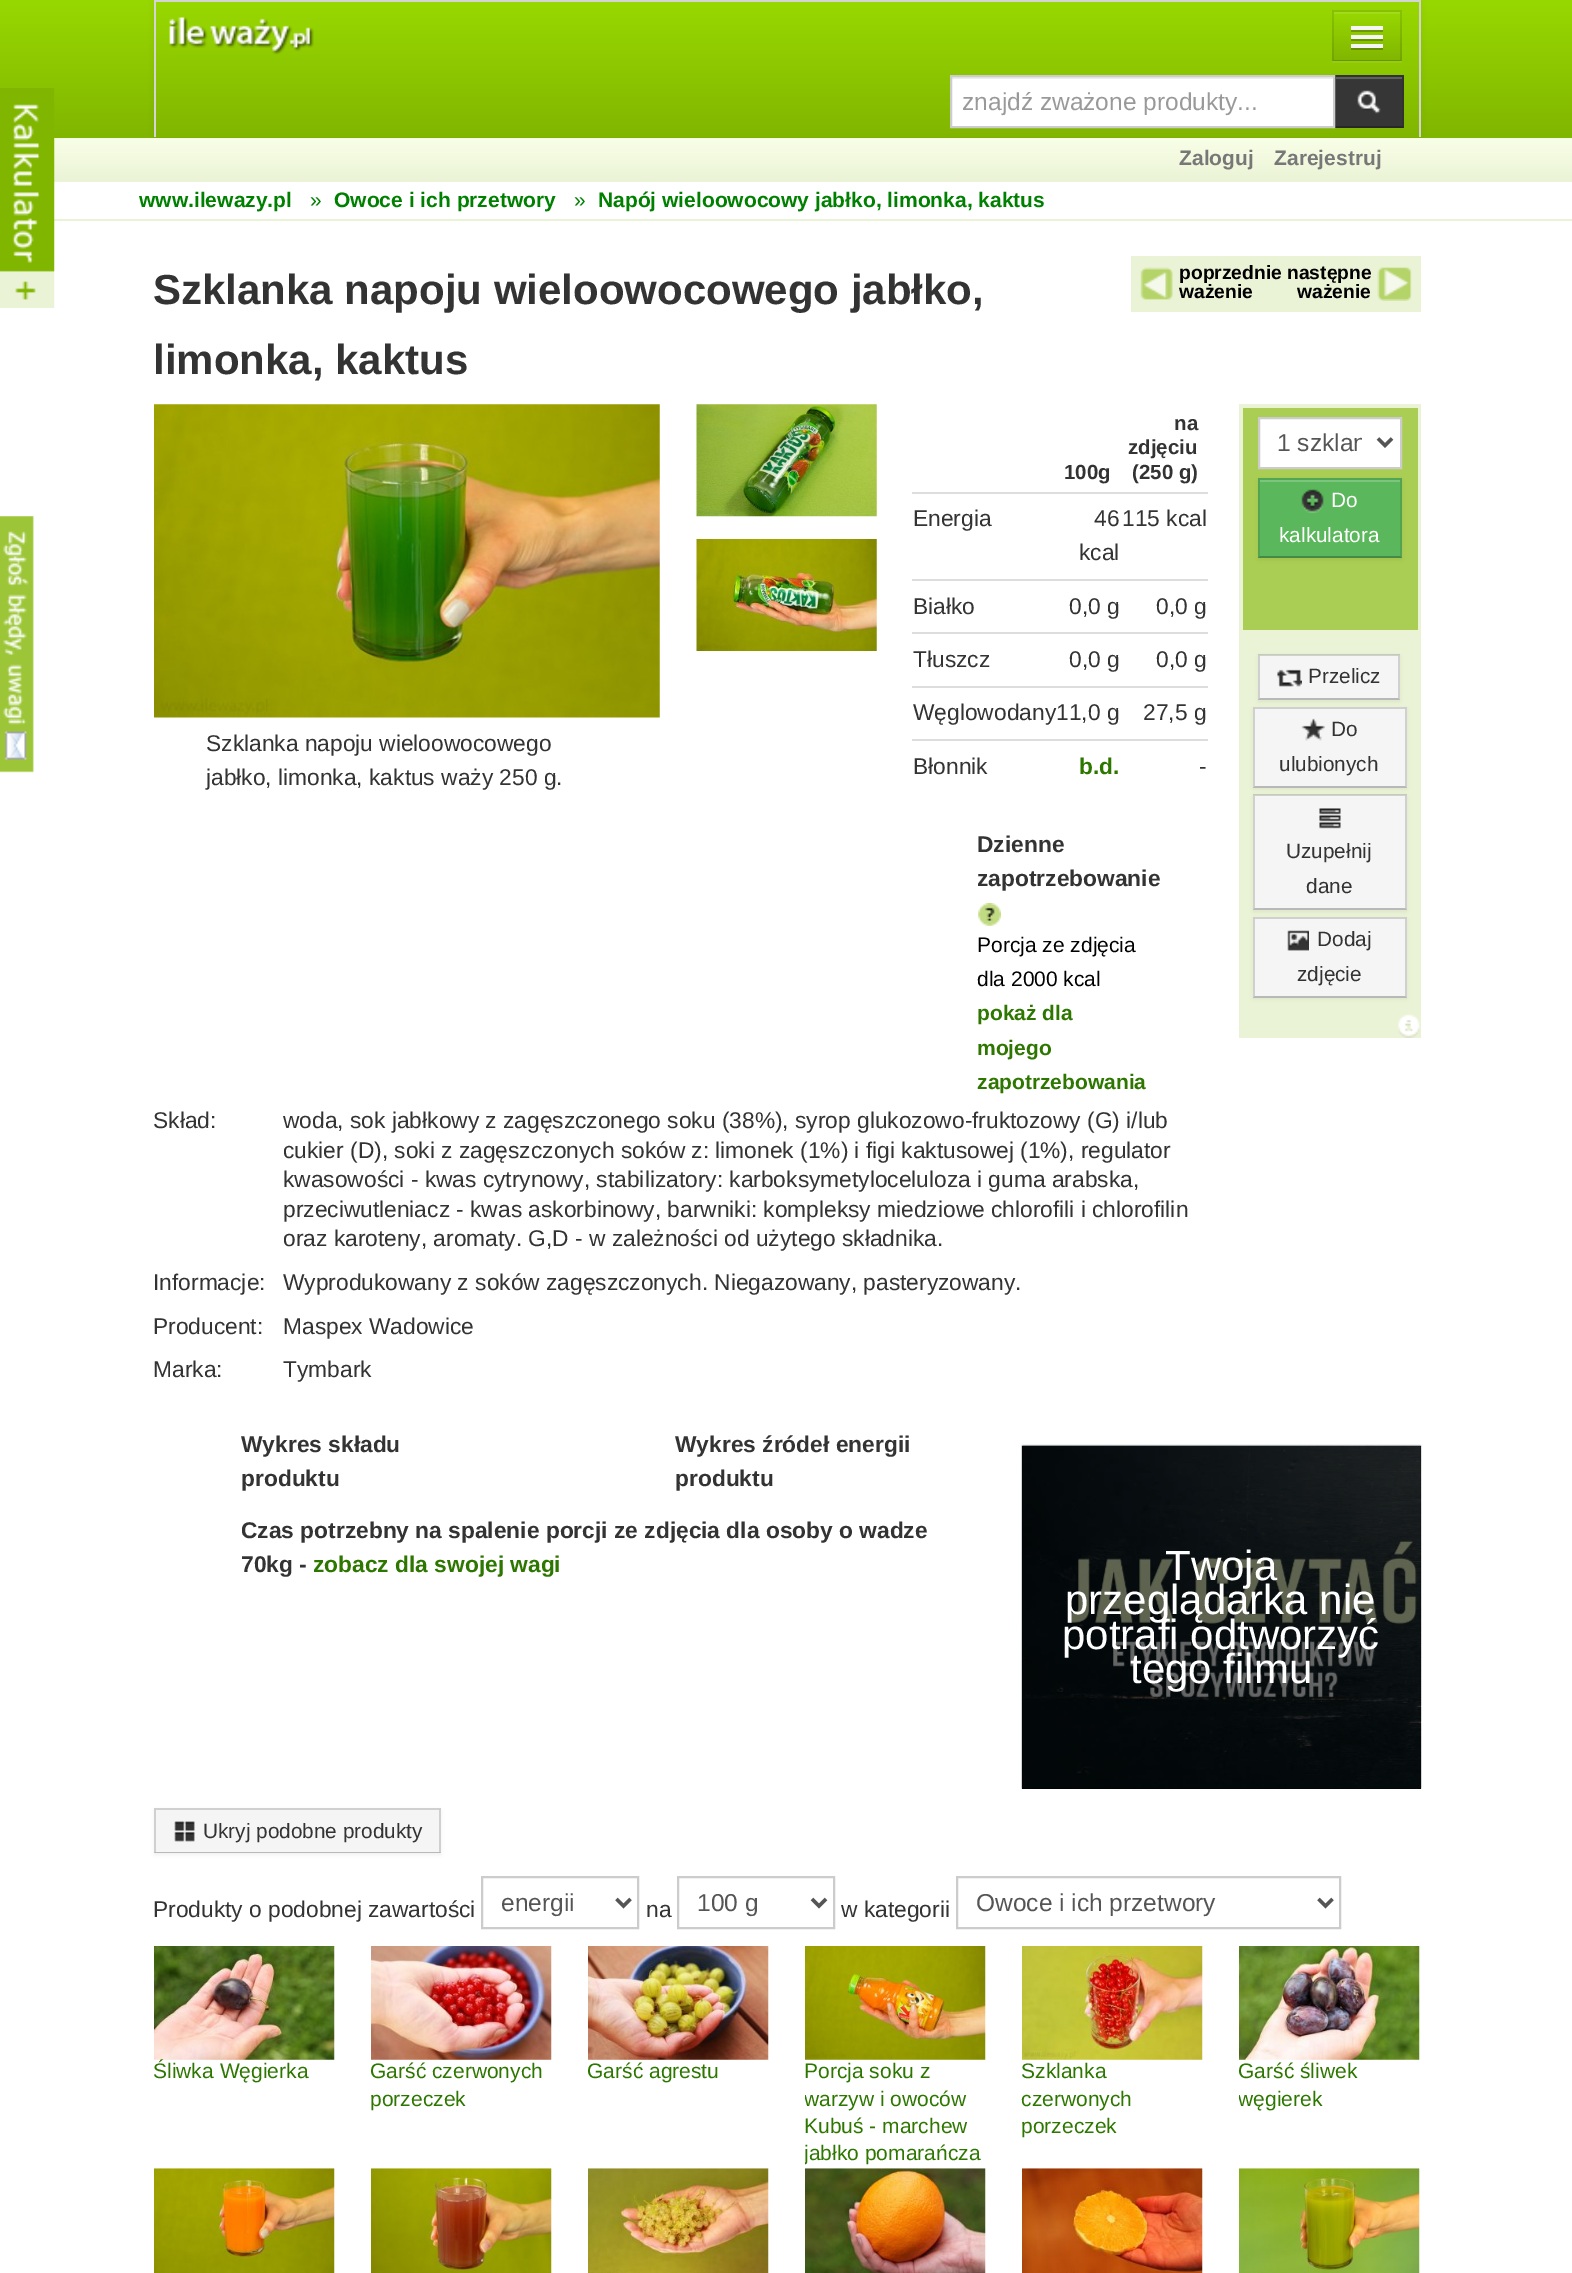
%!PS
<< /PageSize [1572 2273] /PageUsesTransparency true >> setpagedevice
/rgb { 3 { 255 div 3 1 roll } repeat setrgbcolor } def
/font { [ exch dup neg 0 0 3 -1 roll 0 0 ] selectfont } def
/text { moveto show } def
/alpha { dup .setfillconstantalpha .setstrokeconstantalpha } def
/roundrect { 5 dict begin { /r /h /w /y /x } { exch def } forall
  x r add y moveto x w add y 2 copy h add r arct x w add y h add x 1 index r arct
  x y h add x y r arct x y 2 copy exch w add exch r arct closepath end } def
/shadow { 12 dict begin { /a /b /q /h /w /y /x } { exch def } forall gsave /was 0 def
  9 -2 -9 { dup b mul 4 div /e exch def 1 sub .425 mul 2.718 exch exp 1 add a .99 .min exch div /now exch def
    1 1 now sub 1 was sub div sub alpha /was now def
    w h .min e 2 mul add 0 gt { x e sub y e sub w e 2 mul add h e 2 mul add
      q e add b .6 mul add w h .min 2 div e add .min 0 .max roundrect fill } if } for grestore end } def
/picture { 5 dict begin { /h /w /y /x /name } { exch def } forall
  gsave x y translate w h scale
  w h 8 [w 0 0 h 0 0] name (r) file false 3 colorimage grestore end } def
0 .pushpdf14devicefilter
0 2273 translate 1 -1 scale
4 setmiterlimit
255 255 255 rgb
0 0 1572 2273 rectfill
gsave 0 0 moveto 1572 0 rlineto 0 137 rlineto -1572 0 rlineto closepath clip newpath
<< /ShadingType 2 /ColorSpace /DeviceRGB /Coords [787 0 787 137] /Extend [true true] /Function << /FunctionType 2 /Domain [0 1] /C0 [0.596 0.847 0] /C1 [0.506 0.714 0] /N 1 >> >> shfill grestore
129 182 0 rgb
54 137 1518 1 rectfill
0 0 0 rgb
154 2 1267 136 0 3.5 0.06 shadow
gsave 54 138 moveto 1518 0 rlineto 0 44 rlineto -1518 0 rlineto closepath clip newpath
<< /ShadingType 2 /ColorSpace /DeviceRGB /Coords [769 138 769 182] /Extend [true true] /Function << /FunctionType 2 /Domain [0 1] /C0 [0.973 1 0.906] /C1 [0.922 0.953 0.839] /N 1 >> >> shfill grestore
235 243 214 rgb
54 219 1518 2 rectfill
(img_01.rgb) 0 88 55 220 picture
gsave 156 2 moveto 1263 0 rlineto 0 135 rlineto -1263 0 rlineto closepath clip newpath
<< /ShadingType 2 /ColorSpace /DeviceRGB /Coords [788 1.7 788 137] /Extend [true true] /Function << /FunctionType 2 /Domain [0 1] /C0 [0.596 0.847 0] /C1 [0.506 0.714 0] /N 1 >> >> shfill grestore
212 212 212 rgb
154 0 1267 2 rectfill
1419 0 2 137 rectfill
154 0 2 137 rectfill
(img_02.rgb) 169 17 145 38 picture
150 205 18 rgb
1332 61 moveto 0 2 rlineto 70 0 rlineto 0 -51 rlineto 0 49 rlineto closepath fill
gsave 1332 12 moveto 70 0 rlineto 0 48 rlineto -70 0 rlineto closepath clip newpath
<< /ShadingType 2 /ColorSpace /DeviceRGB /Coords [1367 12 1367 60] /Extend [true true] /Function << /FunctionType 2 /Domain [0 1] /C0 [0.596 0.847 0] /C1 [0.506 0.714 0] /N 1 >> >> shfill grestore
162 219 26 rgb
1334 12 66 2 rectfill
135 193 0 rgb
1332 10 moveto 70 0 rlineto -2 2 rlineto -66 0 rlineto closepath fill
0.1 alpha
0 0 0 rgb
1402 10 moveto 0 51 rlineto -2 -1 rlineto 0 -48 rlineto closepath fill
0.25 alpha
1402 61 moveto -70 0 rlineto 2 -1 rlineto 66 0 rlineto closepath fill
0.1 alpha
1332 61 moveto 0 -51 rlineto 2 2 rlineto 0 48 rlineto closepath fill
1 alpha
107 152 0 rgb
1351 30 moveto 0 2 rlineto 32 0 rlineto 0 -4 rlineto -0.5 0 rlineto 0 2 rlineto closepath fill
245 245 245 rgb
1351 26 32 4 rectfill
104 148 0 rgb
1351 38.5 moveto 0 2.5 rlineto 32 0 rlineto 0 -4 rlineto -0.5 0 rlineto 0 1.5 rlineto closepath fill
245 245 245 rgb
1351 35 32 4 rectfill
0.25 alpha
0 0 0 rgb
1351 47 moveto 0 3 rlineto 32 0 rlineto 0 -4 rlineto -0.5 0 rlineto 0 1 rlineto closepath fill
1 alpha
245 245 245 rgb
1351 44 32 4 rectfill
255 255 255 rgb
952 79 381 47 rectfill
236 236 236 rgb
952 77 382 2 rectfill
54 54 54 rgb
1335 75 69 53 rectfill
49 49 49 rgb
1334 75 moveto 70 0 rlineto -2 2 rlineto -67 0 rlineto closepath fill
1404 75 moveto 0 53 rlineto -2 -2 rlineto 0 -49 rlineto closepath fill
0.25 alpha
0 0 0 rgb
1404 128 moveto -70 0 rlineto 1 -2 rlineto 67 0 rlineto closepath fill
1 alpha
204 204 204 rgb
2 setlinewidth
951 76 383 51 rectstroke
94 94 94 rgb
1335 77 67 2 rectfill
(img_03.rgb) 1357 90 24 24 picture
(img_04.rgb) 0 516 34 257 picture
235 243 214 rgb
1131 256 290 56 rectfill
(img_05.rgb) 1140 267 33 33 picture
(img_06.rgb) 1377 267 35 34 picture
(img_07.rgb) 154 404 506 314 picture
(img_08.rgb) 696 404 181 113 picture
(img_09.rgb) 696 539 181 112 picture
221 221 221 rgb
912 492 296 2 rectfill
912 579 296 2 rectfill
912 632 296 2 rectfill
912 686 296 2 rectfill
912 739 296 2 rectfill
(img_10.rgb) 978 903 23 23 picture
235 243 214 rgb
1239 404 182 634 rectfill
170 206 83 rgb
1243 408 175 222 rectfill
255 255 255 rgb
1259 418 moveto 142 0 rlineto 0 50 rlineto -142 0 rlineto closepath gsave fill grestore
204 204 204 rgb
stroke
85 85 85 rgb
3.5 setlinewidth
1378 438.5 moveto 7 7 rlineto 7 -7 rlineto stroke
0 0 0 rgb
1258 480 144 80 0 2 0.05 shadow
91 183 91 rgb
1258 478 144 80 rectfill
124 197 124 rgb
1260 480 140 2 rectfill
82 165 82 rgb
1258 478 moveto 144 0 rlineto -2 2 rlineto -140 0 rlineto closepath fill
0.1 alpha
0 0 0 rgb
1402 478 moveto 0 80 rlineto -2 -2 rlineto 0 -76 rlineto closepath fill
0.25 alpha
1402 558 moveto -144 0 rlineto 2 -2 rlineto 140 0 rlineto closepath fill
0.1 alpha
1258 558 moveto 0 -80 rlineto 2 2 rlineto 0 76 rlineto closepath fill
1 alpha
(img_11.rgb) 1301 489 23 24 picture
1258 656 142 46 0 2 0.05 shadow
245 245 245 rgb
1258 655 142 45 rectfill
0.15 alpha
0 0 0 rgb
1258 654 moveto 142 0 rlineto -2 2 rlineto -138 0 rlineto closepath fill
1400 654 moveto 0 46 rlineto -2 -2 rlineto 0 -42 rlineto closepath fill
0.25 alpha
1400 700 moveto -142 0 rlineto 2 -2 rlineto 138 0 rlineto closepath fill
0.15 alpha
1258 700 moveto 0 -46 rlineto 2 2 rlineto 0 42 rlineto closepath fill
1 alpha
(img_12.rgb) 1277 669 25 18 picture
1253 709 154 80 0 2 0.05 shadow
245 245 245 rgb
1253 707 154 81 rectfill
208 208 208 rgb
1253 707 moveto 154 0 rlineto -2 2 rlineto -150 0 rlineto closepath fill
0.15 alpha
0 0 0 rgb
1407 707 moveto 0 81 rlineto -2 -2 rlineto 0 -77 rlineto closepath fill
0.25 alpha
1407 788 moveto -154 0 rlineto 2 -2 rlineto 150 0 rlineto closepath fill
0.15 alpha
1253 788 moveto 0 -81 rlineto 2 2 rlineto 0 77 rlineto closepath fill
1 alpha
(img_13.rgb) 1301 718 24 23 picture
1253 796 154 116 0 2 0.05 shadow
245 245 245 rgb
1253 795 154 115 rectfill
0.15 alpha
0 0 0 rgb
1253 794 moveto 154 0 rlineto -2 2 rlineto -150 0 rlineto closepath fill
1407 794 moveto 0 116 rlineto -2 -2 rlineto 0 -112 rlineto closepath fill
0.25 alpha
1407 910 moveto -154 0 rlineto 2 -2 rlineto 150 0 rlineto closepath fill
0.15 alpha
1253 910 moveto 0 -116 rlineto 2 2 rlineto 0 112 rlineto closepath fill
1 alpha
(img_14.rgb) 1319 808 22 21 picture
1253 919 154 80 0 2 0.05 shadow
245 245 245 rgb
1253 917 154 81 rectfill
208 208 208 rgb
1253 917 moveto 154 0 rlineto -2 2 rlineto -150 0 rlineto closepath fill
0.15 alpha
0 0 0 rgb
1407 917 moveto 0 81 rlineto -2 -2 rlineto 0 -77 rlineto closepath fill
0.25 alpha
1407 998 moveto -154 0 rlineto 2 -2 rlineto 150 0 rlineto closepath fill
0.15 alpha
1253 998 moveto 0 -81 rlineto 2 2 rlineto 0 77 rlineto closepath fill
1 alpha
(img_15.rgb) 1287 930 22 21 picture
(img_16.rgb) 1398 1014 22 24 picture
1022 1446 399 343 rectfill
(img_17.rgb) 1021 1444 401 345 picture
154 1810 287 45 0 2 0.05 shadow
245 245 245 rgb
154 1808 287 45 rectfill
208 208 208 rgb
154 1808 moveto 287 0 rlineto -2 2 rlineto -283 0 rlineto closepath fill
0.15 alpha
0 0 0 rgb
441 1808 moveto 0 45 rlineto -2 -1 rlineto 0 -42 rlineto closepath fill
0.25 alpha
441 1853 moveto -287 0 rlineto 2 -1 rlineto 283 0 rlineto closepath fill
0.15 alpha
154 1853 moveto 0 -45 rlineto 2 2 rlineto 0 42 rlineto closepath fill
1 alpha
(img_18.rgb) 174 1821 21 21 picture
204 204 204 rgb
2 setlinewidth
482 1877 156 51 rectstroke
85 85 85 rgb
3.5 setlinewidth
616.5 1899 moveto 7 7 rlineto 7 -7 rlineto stroke
204 204 204 rgb
2 setlinewidth
678 1877 156 51 rectstroke
85 85 85 rgb
3.5 setlinewidth
812 1899 moveto 7 7 rlineto 7 -7 rlineto stroke
204 204 204 rgb
2 setlinewidth
957 1877 383 51 rectstroke
85 85 85 rgb
3.5 setlinewidth
1318.5 1899 moveto 7 7 rlineto 7 -7 rlineto stroke
(img_19.rgb) 154 1946 181 114 picture
(img_20.rgb) 371 1946 181 114 picture
(img_21.rgb) 588 1946 181 114 picture
(img_22.rgb) 805 1946 181 114 picture
(img_23.rgb) 1022 1946 181 114 picture
(img_24.rgb) 1239 1946 181 114 picture
(img_25.rgb) 154 2168 181 105 picture
(img_26.rgb) 371 2168 181 105 picture
(img_27.rgb) 588 2168 181 105 picture
(img_28.rgb) 805 2168 181 105 picture
(img_29.rgb) 1022 2168 181 105 picture
(img_30.rgb) 1239 2168 181 105 picture
/LiberationSans-Regular 24.5 font
153 153 153 rgb
(znajdź zważone produkty...) 962 110 text
/LiberationSans-Bold 21 font
119 119 119 rgb
(Zaloguj) 1179 165 text
(Zarejestruj) 1274 165 text
0 128 0 rgb
(www.ilewazy.pl) 139 207 text
/LiberationSans-Regular 21 font
(») 310 207 text
/LiberationSans-Bold 21 font
(Owoce i ich przetwory) 334 207 text
/LiberationSans-Regular 21 font
(») 574 207 text
/LiberationSans-Bold 21 font
(Napój wieloowocowy jabłko, limonka, kaktus) 598 207 text
/LiberationSans-Bold 42 font
51 51 51 rgb
(Szklanka napoju wieloowocowego jabłko,) 153 304 text
(limonka, kaktus) 153 374 text
/LiberationSans-Bold 19.25 font
0 0 0 rgb
(poprzednie następne) 1179 279 text
(ważenie) 1179 298 text
(ważenie) 1297 298 text
/LiberationSans-Regular 22.75 font
51 51 51 rgb
(Szklanka napoju wieloowocowego) 206 751 text
(jabłko, limonka, kaktus waży 250 g.) 206 785 text
/LiberationSans-Bold 20.5 font
(100g) 1064 479 text
(na) 1174 430 text
(zdjęciu) 1128 454 text
(\(250 g\)) 1132 479 text
/LiberationSans-Regular 22.75 font
(Energia) 913 526 text
(46) 1094 526 text
(kcal) 1079 560 text
(115 kcal) 1122 526 text
(Białko) 913 614 text
(0,0 g) 1069 614 text
(0,0 g) 1156 614 text
(Tłuszcz) 913 667 text
(0,0 g) 1069 667 text
(0,0 g) 1156 667 text
(Węglowodany) 913 720 text
(11,0 g) 1056 720 text
(27,5 g) 1143 720 text
(Błonnik) 913 774 text
/LiberationSans-Bold 22.75 font
45 119 0 rgb
(b.d.) 1079 774 text
/LiberationSans-Regular 22.75 font
51 51 51 rgb
(-) 1199 774 text
/LiberationSans-Bold 22.75 font
(Dzienne) 977 852 text
(zapotrzebowanie) 977 886 text
/LiberationSans-Regular 21 font
0 0 0 rgb
(Porcja ze zdjęcia) 977 952 text
(dla 2000 kcal) 977 986 text
/LiberationSans-Bold 21 font
45 119 0 rgb
(pokaż dla) 977 1020 text
(mojego) 977 1055 text
(zapotrzebowania) 977 1089 text
gsave
1278 427 84 32 rectclip
/LiberationSans-Regular 24.5 font
85 85 85 rgb
(1 szklan) 1277 451 text
grestore
/LiberationSans-Regular 20.75 font
255 255 255 rgb
(Do) 1331 507 text
(kalkulatora) 1279 542 text
51 51 51 rgb
(Przelicz) 1308 683 text
(Do) 1331 736 text
(ulubionych) 1279 771 text
(Uzupełnij) 1286 858 text
(dane) 1306 893 text
(Dodaj) 1317 946 text
(zdjęcie) 1297 981 text
/LiberationSans-Regular 22.75 font
(Skład:) 153 1128 text
(woda, sok jabłkowy z zagęszczonego soku \(38%\), syrop glukozowo-fruktozowy \(G\) i/lub) 283 1128 text
(cukier \(D\), soki z zagęszczonych soków z: limonek \(1%\) i figi kaktusowej \(1%\), regulator) 283 1158 text
(kwasowości - kwas cytrynowy, stabilizatory: karboksymetyloceluloza i guma arabska,) 283 1187 text
(przeciwutleniacz - kwas askorbinowy, barwniki: kompleksy miedziowe chlorofili i chlorofilin) 283 1217 text
(oraz karoteny, aromaty. G,D - w zależności od użytego składnika.) 283 1246 text
(Informacje:) 153 1290 text
(Wyprodukowany z soków zagęszczonych. Niegazowany, pasteryzowany.) 283 1290 text
(Producent:) 153 1334 text
(Maspex Wadowice) 283 1334 text
(Marka:) 153 1377 text
(Tymbark) 283 1377 text
/LiberationSans-Bold 22.75 font
(Wykres składu) 241 1452 text
(produktu) 241 1486 text
(Wykres źródeł energii) 675 1452 text
(produktu) 675 1486 text
(Czas potrzebny na spalenie porcji ze zdjęcia dla osoby o wadze) 241 1538 text
(70kg -) 241 1572 text
45 119 0 rgb
(zobacz dla swojej wagi) 313 1572 text
/LiberationSans-Regular 42 font
255 255 255 rgb
(Twoja) 1165 1580 text
(przeglądarka nie) 1065 1614 text
(potrafi odtworzyć) 1062 1649 text
(tego filmu) 1130 1683 text
/LiberationSans-Regular 20.75 font
51 51 51 rgb
(Ukryj podobne produkty) 203 1838 text
/LiberationSans-Regular 22.75 font
(Produkty o podobnej zawartości) 153 1917 text
/LiberationSans-Regular 24.5 font
85 85 85 rgb
(energii) 501 1911 text
/LiberationSans-Regular 22.75 font
51 51 51 rgb
(na) 646 1917 text
/LiberationSans-Regular 24.5 font
85 85 85 rgb
(100 g) 697 1911 text
/LiberationSans-Regular 22.75 font
51 51 51 rgb
(w kategorii) 841 1917 text
/LiberationSans-Regular 24.5 font
85 85 85 rgb
(Owoce i ich przetwory) 976 1911 text
/LiberationSans-Regular 21 font
45 119 0 rgb
(Śliwka Węgierka) 153 2078 text
(Garść czerwonych) 370 2078 text
(porzeczek) 370 2106 text
(Garść agrestu) 587 2078 text
(Porcja soku z) 804 2078 text
gsave
805 1946 182 222 rectclip
(warzyw i owoców) 804 2106 text
grestore
(Kubuś - marchew) 804 2133 text
gsave
805 1946 182 222 rectclip
(jabłko pomarańcza) 804 2160 text
grestore
(Szklanka) 1021 2078 text
(czerwonych) 1021 2106 text
(porzeczek) 1021 2133 text
(Garść śliwek) 1238 2078 text
gsave
1239 1946 182 168 rectclip
(węgierek) 1238 2106 text
grestore
.poppdf14devicefilter showpage
